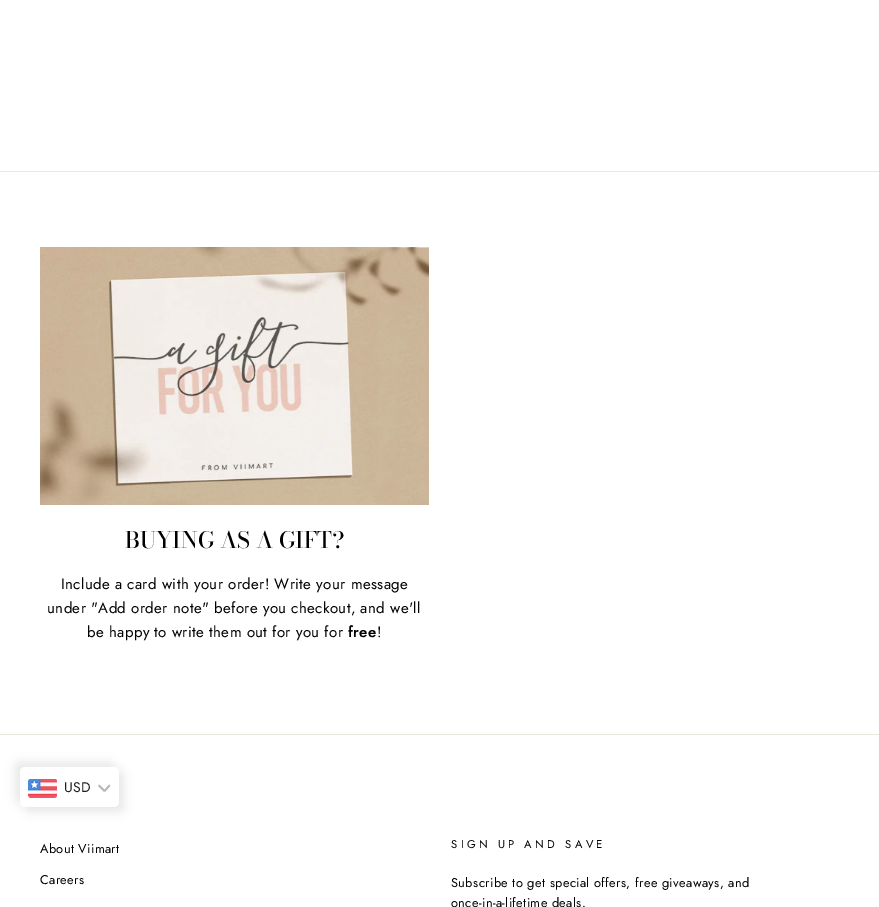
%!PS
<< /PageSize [879 907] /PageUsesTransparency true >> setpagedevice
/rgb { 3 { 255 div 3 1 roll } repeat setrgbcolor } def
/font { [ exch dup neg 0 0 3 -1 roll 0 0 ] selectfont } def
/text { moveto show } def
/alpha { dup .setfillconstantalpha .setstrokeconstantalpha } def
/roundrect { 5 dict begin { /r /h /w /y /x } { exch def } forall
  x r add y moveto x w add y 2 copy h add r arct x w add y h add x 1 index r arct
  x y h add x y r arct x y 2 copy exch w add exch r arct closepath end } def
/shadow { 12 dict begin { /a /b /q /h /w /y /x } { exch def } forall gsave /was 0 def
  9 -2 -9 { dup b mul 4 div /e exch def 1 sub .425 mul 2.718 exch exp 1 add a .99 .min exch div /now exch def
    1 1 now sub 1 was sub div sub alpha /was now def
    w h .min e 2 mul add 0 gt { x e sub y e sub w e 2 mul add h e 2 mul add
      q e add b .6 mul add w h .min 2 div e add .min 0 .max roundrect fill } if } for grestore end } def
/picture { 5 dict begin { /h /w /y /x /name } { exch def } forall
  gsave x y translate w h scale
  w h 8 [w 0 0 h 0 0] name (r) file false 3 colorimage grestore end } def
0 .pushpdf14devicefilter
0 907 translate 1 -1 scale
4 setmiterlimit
255 255 255 rgb
0 0 879 907 rectfill
232 232 225 rgb
0 171 879 1 rectfill
(img_01.rgb) 40 247 389 258 picture
0 734 879 1 rectfill
232 232 232 rgb
15 762 99 40 5 5 1 shadow
25 772 99 40 5 5 1 shadow
255 255 255 rgb
20 767 99 40 5 roundrect fill
(img_02.rgb) 28 779 29 19 picture
183 183 183 rgb
1.8 setlinewidth
1 setlinecap
1 setlinejoin
99 785.5 moveto 5.5 5.5 rlineto 5 -5.5 rlineto stroke
/BodoniModa-Medium 22.5 font
0 0 0 rgb
(BUYING AS A GIFT?) 125 548 text
/Jost-Regular 15 font
61 589 moveto 0.38 0 (Include a card with your order! Write your message) ashow
47 613 moveto 0.38 0 (under "Add order note" before you checkout, and we'll) ashow
87 637 moveto 0.38 0 (be happy to write them out for you for) ashow
/Jost-SemiBold 15 font
348 637 moveto 0.38 0 (free) ashow
/Jost-Regular 15 font
377 637 moveto 0.38 0 (!) ashow
/Jost-Regular 12.75 font
40 853 moveto 0.38 0 (About Viimart) ashow
40 884 moveto 0.38 0 (Careers) ashow
/Jost-Regular 11.25 font
451 848 moveto 3.4 0 (SIGN UP AND SAVE) ashow
/Jost-Regular 12.75 font
451 887 moveto 0.38 0 (Subscribe to get special offers, free giveaways, and) ashow
451 907 moveto 0.38 0 (once-in-a-lifetime deals.) ashow
/Jost-Regular 14 font
30 30 30 rgb
64 792 moveto 0.38 0 (USD) ashow
.poppdf14devicefilter showpage
